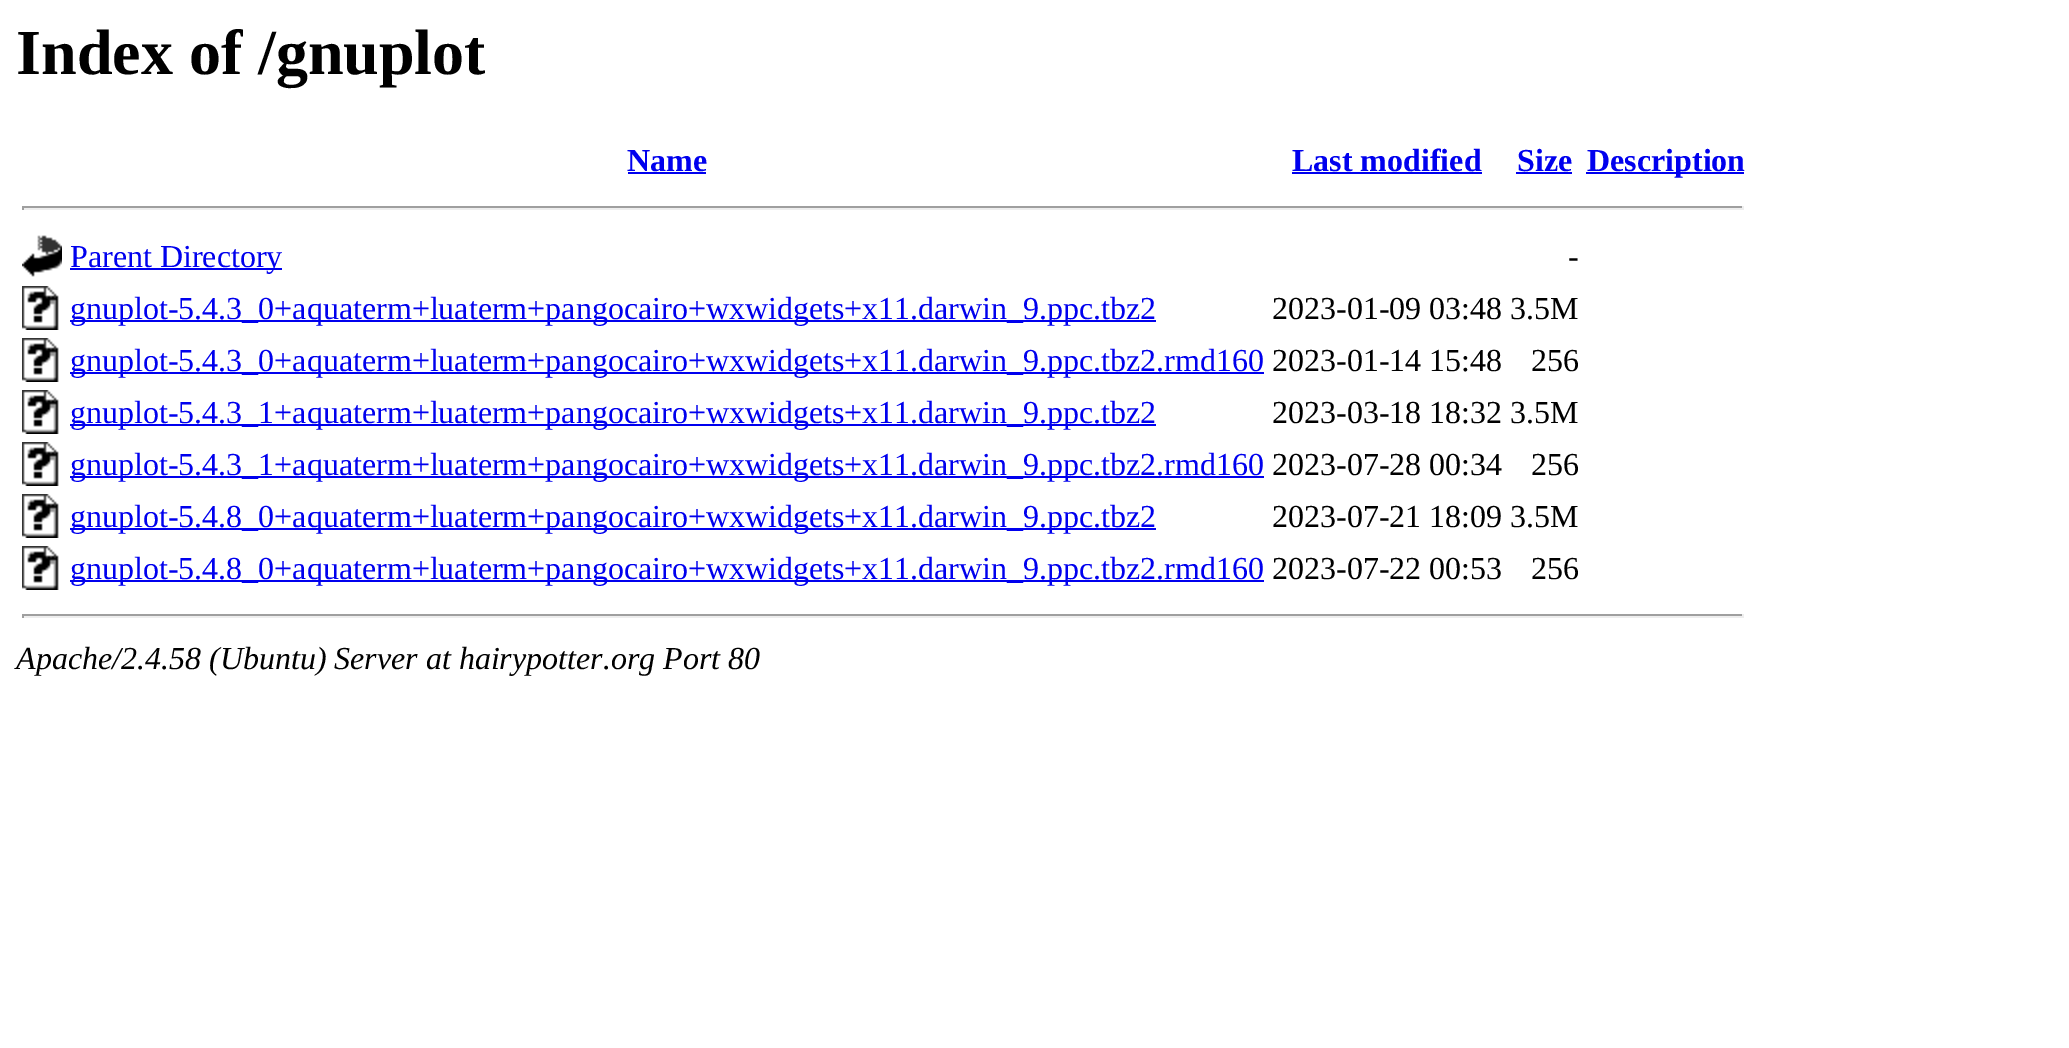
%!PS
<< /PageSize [2069 1048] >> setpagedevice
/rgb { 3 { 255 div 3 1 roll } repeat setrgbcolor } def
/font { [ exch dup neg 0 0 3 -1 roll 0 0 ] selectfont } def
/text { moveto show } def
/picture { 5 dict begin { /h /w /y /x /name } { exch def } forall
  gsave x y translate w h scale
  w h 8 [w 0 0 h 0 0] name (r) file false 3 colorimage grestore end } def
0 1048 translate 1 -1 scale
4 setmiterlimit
255 255 255 rgb
0 0 2069 1048 rectfill
0 0 238 rgb
628 172 78 2 rectfill
1292 172 190 2 rectfill
1516 172 56 2 rectfill
1586 172 158 2 rectfill
159 159 159 rgb
22 206 1722 2 rectfill
238 238 238 rgb
1742 206 2 4 rectfill
22 208 1722 2 rectfill
159 159 159 rgb
22 206 2 4 rectfill
(img_01.rgb) 22 235 40 42 picture
0 0 238 rgb
70 268 212 2 rectfill
(img_02.rgb) 22 286 37 44 picture
70 320 1086 2 rectfill
(img_02.rgb) 22 338 37 44 picture
70 372 1194 2 rectfill
(img_02.rgb) 22 390 37 44 picture
70 424 1086 2 rectfill
(img_02.rgb) 22 442 37 44 picture
70 476 1194 2 rectfill
(img_02.rgb) 22 494 37 44 picture
70 528 1086 2 rectfill
(img_02.rgb) 22 546 37 44 picture
70 580 1194 2 rectfill
159 159 159 rgb
22 614 1722 2 rectfill
238 238 238 rgb
1742 614 2 4 rectfill
22 616 1722 2 rectfill
159 159 159 rgb
22 614 2 4 rectfill
/LiberationSerif-Bold 64 font
0 0 0 rgb
(Index of /gnuplot) 16 74 text
/LiberationSerif-Bold 32 font
0 0 238 rgb
(Name) 627 171 text
(Last modified) 1292 171 text
(Size) 1517 171 text
(Description) 1587 171 text
/LiberationSerif-Regular 32 font
(Parent Directory) 70 267 text
0 0 0 rgb
(-) 1568 267 text
0 0 238 rgb
(gnuplot-5.4.3_0+aquaterm+luaterm+pangocairo+wxwidgets+x11.darwin_9.ppc.tbz2) 70 319 text
0 0 0 rgb
(2023-01-09 03:48 3.5M) 1272 319 text
0 0 238 rgb
(gnuplot-5.4.3_0+aquaterm+luaterm+pangocairo+wxwidgets+x11.darwin_9.ppc.tbz2.rmd160) 70 371 text
0 0 0 rgb
(2023-01-14 15:48) 1272 371 text
(256) 1531 371 text
0 0 238 rgb
(gnuplot-5.4.3_1+aquaterm+luaterm+pangocairo+wxwidgets+x11.darwin_9.ppc.tbz2) 70 423 text
0 0 0 rgb
(2023-03-18 18:32 3.5M) 1272 423 text
0 0 238 rgb
(gnuplot-5.4.3_1+aquaterm+luaterm+pangocairo+wxwidgets+x11.darwin_9.ppc.tbz2.rmd160) 70 475 text
0 0 0 rgb
(2023-07-28 00:34) 1272 475 text
(256) 1531 475 text
0 0 238 rgb
(gnuplot-5.4.8_0+aquaterm+luaterm+pangocairo+wxwidgets+x11.darwin_9.ppc.tbz2) 70 527 text
0 0 0 rgb
(2023-07-21 18:09 3.5M) 1272 527 text
0 0 238 rgb
(gnuplot-5.4.8_0+aquaterm+luaterm+pangocairo+wxwidgets+x11.darwin_9.ppc.tbz2.rmd160) 70 579 text
0 0 0 rgb
(2023-07-22 00:53) 1272 579 text
(256) 1531 579 text
/LiberationSerif-Italic 32 font
(Apache/2.4.58 \(Ubuntu\) Server at hairypotter.org Port 80) 16 669 text
showpage
